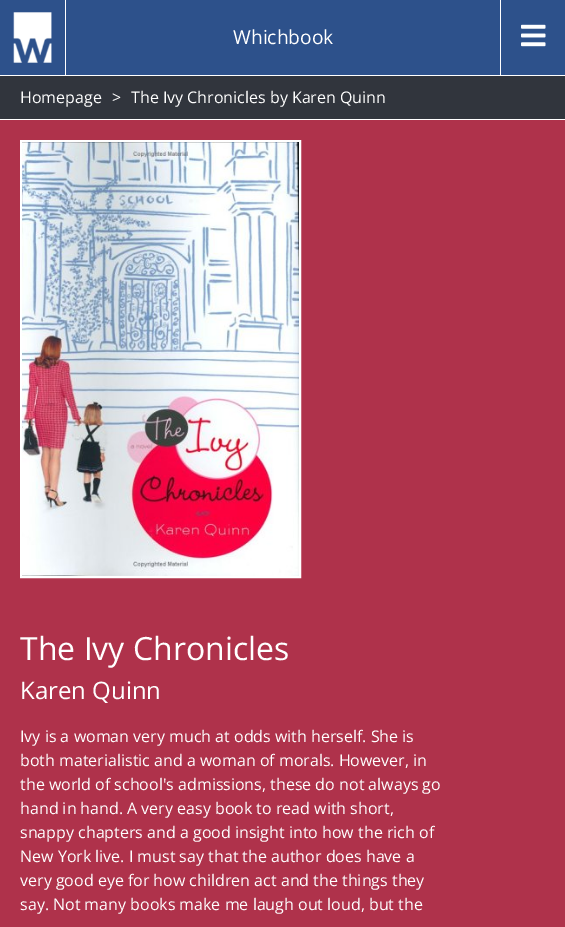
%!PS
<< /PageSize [565 927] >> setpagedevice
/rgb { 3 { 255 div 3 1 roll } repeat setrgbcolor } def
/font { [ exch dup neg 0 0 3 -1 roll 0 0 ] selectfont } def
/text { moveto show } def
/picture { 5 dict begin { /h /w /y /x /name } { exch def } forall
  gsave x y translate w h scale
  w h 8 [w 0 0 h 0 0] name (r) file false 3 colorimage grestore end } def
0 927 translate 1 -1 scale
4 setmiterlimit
49 53 61 rgb
0 0 565 927 rectfill
45 81 139 rgb
0 0 565 75 rectfill
255 255 255 rgb
0 75 565 1 rectfill
65 0 1 75 rectfill
(img_01.rgb) 13 12 39 51 picture
500 0 1 75 rectfill
(img_02.rgb) 521 24 25 23 picture
0 119 565 1 rectfill
175 50 75 rgb
0 120 565 807 rectfill
255 255 255 rgb
2 setlinewidth
21 141 279 436 rectstroke
(img_03.rgb) 22 142 277 434 picture
/OpenSans-Regular 19.25 font
(Whichbook) 233 44 text
/OpenSans-Regular 16 font
(Homepage) 20 103 text
(>) 112 103 text
(The Ivy Chronicles by Karen Quinn) 131 103 text
/OpenSans-Regular 32 font
(The Ivy Chronicles) 20 660 text
/OpenSans-Regular 24 font
(Karen Quinn) 20 699 text
/OpenSans-Regular 16 font
(Ivy is a woman very much at odds with herself. She is) 20 742 text
(both materialistic and a woman of morals. However, in) 20 766 text
(the world of school's admissions, these do not always go) 20 790 text
(hand in hand. A very easy book to read with short,) 20 814 text
(snappy chapters and a good insight into how the rich of) 20 838 text
(New York live. I must say that the author does have a) 20 862 text
(very good eye for how children act and the things they) 20 886 text
(say. Not many books make me laugh out loud, but the) 20 910 text
showpage
